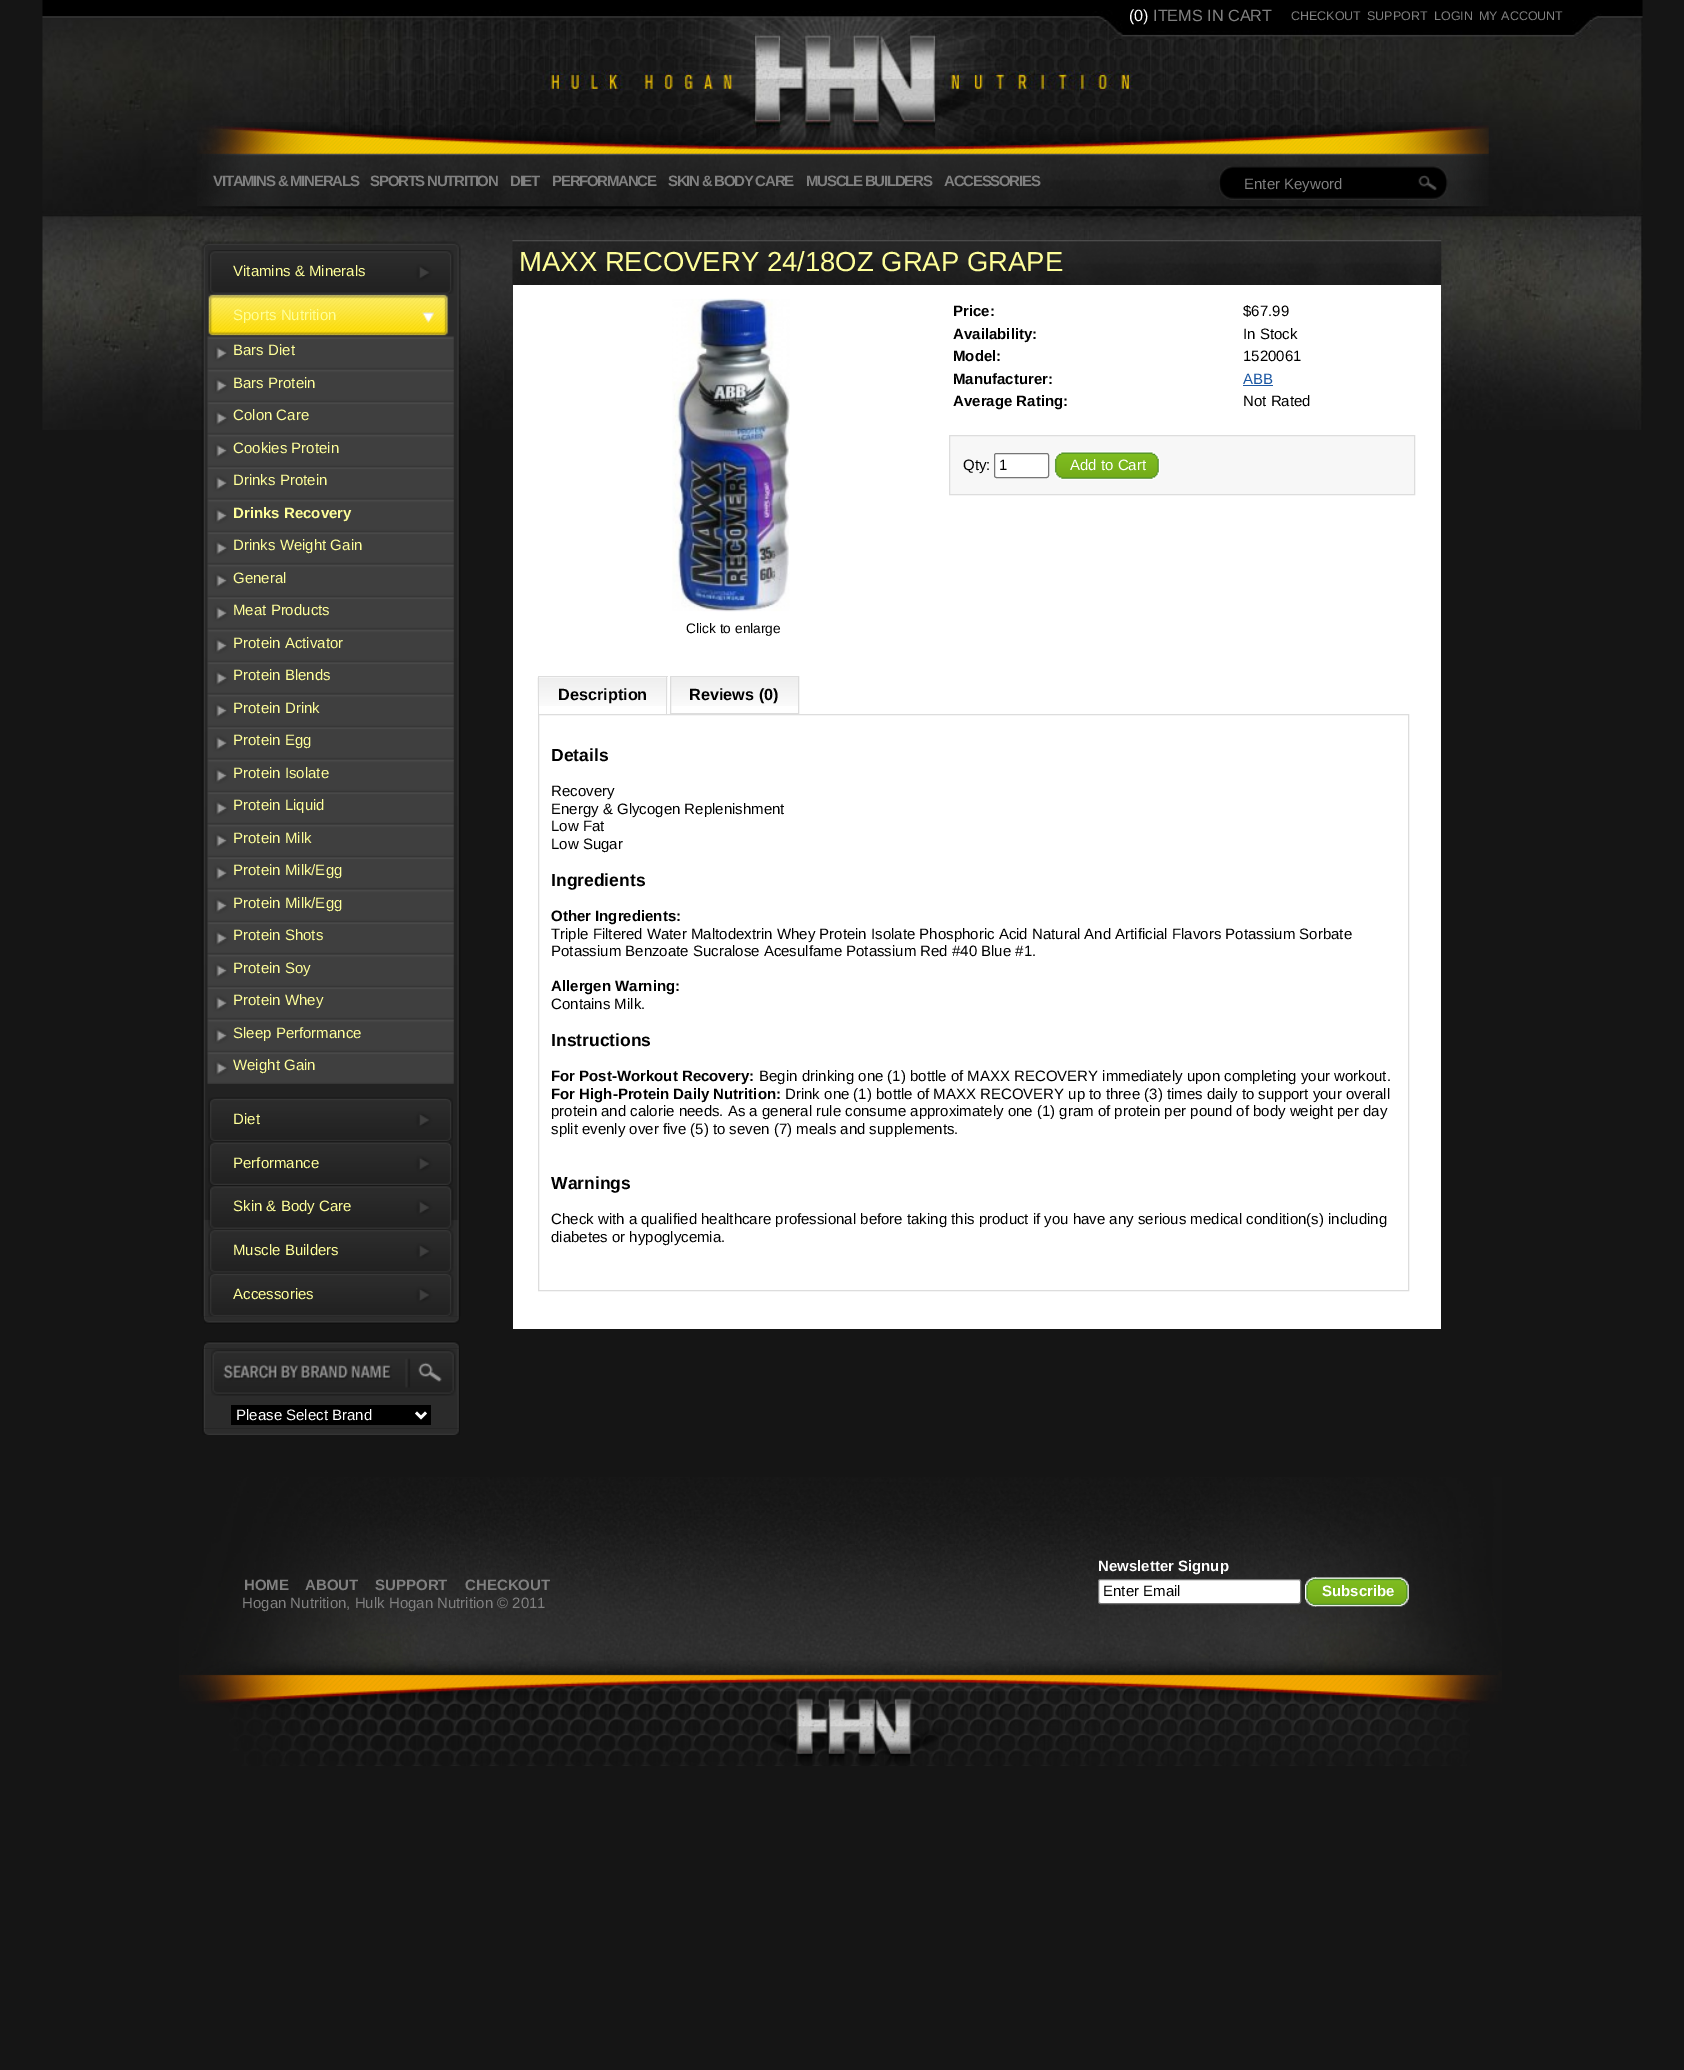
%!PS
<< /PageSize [1684 2070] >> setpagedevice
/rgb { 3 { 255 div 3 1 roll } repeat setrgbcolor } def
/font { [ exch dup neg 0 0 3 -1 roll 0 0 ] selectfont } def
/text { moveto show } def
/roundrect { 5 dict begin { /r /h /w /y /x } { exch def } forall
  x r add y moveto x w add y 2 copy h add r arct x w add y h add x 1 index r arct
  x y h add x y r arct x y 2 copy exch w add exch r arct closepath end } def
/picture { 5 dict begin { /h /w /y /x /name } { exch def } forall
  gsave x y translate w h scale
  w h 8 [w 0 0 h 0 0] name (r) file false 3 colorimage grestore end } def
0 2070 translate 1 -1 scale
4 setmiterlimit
21 21 21 rgb
0 0 1684 2070 rectfill
(img_01.rgb) 42 0 1601 430 picture
(img_02.rgb) 197 122 1292 87 picture
(img_03.rgb) 1219 166 190 34 picture
(img_04.rgb) 1408 166 40 34 picture
(img_05.rgb) 201 241 260 9 picture
(img_06.rgb) 201 250 260 1067 picture
(img_07.rgb) 208 250 246 44 picture
(img_08.rgb) 208 294 241 42 picture
(img_09.rgb) 207 336 247 33 picture
(img_10.rgb) 207 369 247 33 picture
(img_11.rgb) 207 401 247 33 picture
(img_12.rgb) 207 434 247 33 picture
(img_13.rgb) 207 466 247 33 picture
(img_14.rgb) 207 499 247 33 picture
(img_15.rgb) 207 531 247 33 picture
(img_16.rgb) 207 564 247 33 picture
(img_17.rgb) 207 596 247 33 picture
(img_18.rgb) 207 629 247 33 picture
(img_19.rgb) 207 661 247 33 picture
(img_20.rgb) 207 694 247 33 picture
(img_21.rgb) 207 726 247 33 picture
(img_22.rgb) 207 759 247 33 picture
(img_23.rgb) 207 791 247 33 picture
(img_24.rgb) 207 824 247 33 picture
(img_25.rgb) 207 856 247 33 picture
(img_26.rgb) 207 889 247 33 picture
(img_27.rgb) 207 921 247 33 picture
(img_28.rgb) 207 954 247 33 picture
(img_29.rgb) 207 986 247 33 picture
(img_30.rgb) 207 1019 247 33 picture
(img_31.rgb) 207 1051 247 33 picture
(img_32.rgb) 208 1097 245 44 picture
(img_33.rgb) 208 1141 245 44 picture
(img_34.rgb) 208 1185 246 44 picture
(img_35.rgb) 208 1229 246 44 picture
(img_36.rgb) 208 1272 246 45 picture
(img_37.rgb) 204 1316 256 8 picture
(img_38.rgb) 204 1341 256 8 picture
(img_39.rgb) 202 1349 258 80 picture
(img_40.rgb) 211 1349 245 47 picture
0 0 0 rgb
231 1405 200 20 rectfill
255 255 255 rgb
2.5 setlinewidth
416 1412.5 moveto 5 5 rlineto 5 -5 rlineto stroke
(img_41.rgb) 202 1429 258 6 picture
(img_42.rgb) 512 240 930 45 picture
513 285 928 1044 rectfill
27 87 163 rgb
1243 385 30 1 rectfill
247 247 247 rgb
949.5 435.5 moveto 465 0 rlineto 0 59 rlineto -465 0 rlineto closepath gsave fill grestore
221 221 221 rgb
1 setlinewidth
stroke
255 255 255 rgb
994.5 453.5 54 24 2 roundrect gsave fill grestore
118 118 118 rgb
stroke
(img_43.rgb) 1054 451 11 29 picture
(img_44.rgb) 1065 451 95 29 picture
(img_45.rgb) 672 298 118 314 picture
(img_46.rgb) 537 677 131 29 picture
221 221 221 rgb
538 676 130 1 rectfill
666 676 1 38 rectfill
538 676 1 38 rectfill
(img_47.rgb) 671 677 127 29 picture
670.5 676.5 128 37 rectstroke
538.5 714.5 870 576 rectstroke
(img_48.rgb) 179 1477 1323 289 picture
255 255 255 rgb
1098.5 1579.5 202 24 2 roundrect gsave fill grestore
118 118 118 rgb
stroke
(img_49.rgb) 1305 1577 12 30 picture
(img_50.rgb) 1315 1577 94 30 picture
/LiberationSans-Regular 16.25 font
255 255 255 rgb
(\(0\)) 1129 21 text
128 128 128 rgb
(ITEMS IN CART) 1153 21 text
/LiberationSans-Regular 12.5 font
(CHECKOUT) 1291 20 text
(SUPPORT) 1367 20 text
(LOGIN) 1434 20 text
(MY ACCOUNT) 1479 20 text
/LiberationSans-Bold 15 font
213 186 moveto -1.25 0 (VITAMINS & MINERALS) ashow
370 186 moveto -1.25 0 (SPORTS NUTRITION) ashow
510 186 moveto -1.25 0 (DIET) ashow
552 186 moveto -1.25 0 (PERFORMANCE) ashow
668 186 moveto -1.25 0 (SKIN & BODY CARE) ashow
806 186 moveto -1.25 0 (MUSCLE BUILDERS) ashow
944 186 moveto -1.25 0 (ACCESSORIES) ashow
/LiberationSans-Regular 15 font
(Enter Keyword) 1244 189 text
255 255 153 rgb
(Vitamins & Minerals) 233 276 text
(Sports Nutrition) 233 320 text
(Bars Diet) 233 355 text
(Bars Protein) 233 388 text
(Colon Care) 233 420 text
(Cookies Protein) 233 453 text
(Drinks Protein) 233 485 text
/LiberationSans-Bold 15 font
(Drinks Recovery) 233 518 text
/LiberationSans-Regular 15 font
(Drinks Weight Gain) 233 550 text
(General) 233 583 text
(Meat Products) 233 615 text
(Protein Activator) 233 648 text
(Protein Blends) 233 680 text
(Protein Drink) 233 713 text
(Protein Egg) 233 745 text
(Protein Isolate) 233 778 text
(Protein Liquid) 233 810 text
(Protein Milk) 233 843 text
(Protein Milk/Egg) 233 875 text
(Protein Milk/Egg) 233 908 text
(Protein Shots) 233 940 text
(Protein Soy) 233 973 text
(Protein Whey) 233 1005 text
(Sleep Performance) 233 1038 text
(Weight Gain) 233 1070 text
(Diet) 233 1124 text
(Performance) 233 1168 text
(Skin & Body Care) 233 1211 text
(Muscle Builders) 233 1255 text
(Accessories) 233 1299 text
255 255 255 rgb
(Please Select Brand) 236 1420 text
/LiberationSans-Regular 27.5 font
255 255 153 rgb
(MAXX RECOVERY 24/18OZ GRAP GRAPE) 519 271 text
/LiberationSans-Bold 15 font
0 0 0 rgb
(Price:) 953 316 text
/LiberationSans-Regular 15 font
($67.99) 1243 316 text
/LiberationSans-Bold 15 font
(Availability:) 953 339 text
/LiberationSans-Regular 15 font
(In Stock) 1243 339 text
/LiberationSans-Bold 15 font
(Model:) 953 361 text
/LiberationSans-Regular 15 font
(1520061) 1243 361 text
/LiberationSans-Bold 15 font
(Manufacturer:) 953 384 text
/LiberationSans-Regular 15 font
27 87 163 rgb
(ABB) 1243 384 text
/LiberationSans-Bold 15 font
0 0 0 rgb
(Average Rating:) 953 406 text
/LiberationSans-Regular 15 font
(Not Rated) 1243 406 text
(Qty:) 963 470 text
(1) 999 470 text
255 255 255 rgb
(Add to Cart) 1070 470 text
/LiberationSans-Regular 13.75 font
0 0 0 rgb
(Click to enlarge) 686 633 text
/LiberationSans-Bold 16.25 font
(Description) 558 700 text
(Reviews \(0\)) 689 700 text
/LiberationSans-Bold 17.5 font
(Details) 551 761 text
/LiberationSans-Regular 15 font
(Recovery) 551 796 text
(Energy & Glycogen Replenishment) 551 814 text
(Low Fat) 551 831 text
(Low Sugar) 551 849 text
/LiberationSans-Bold 17.5 font
(Ingredients) 551 886 text
/LiberationSans-Bold 15 font
(Other Ingredients:) 551 921 text
/LiberationSans-Regular 15 font
(Triple Filtered Water Maltodextrin Whey Protein Isolate Phosphoric Acid Natural And Artificial Flavors Potassium Sorbate) 551 939 text
(Potassium Benzoate Sucralose Acesulfame Potassium Red #40 Blue #1.) 551 956 text
/LiberationSans-Bold 15 font
(Allergen Warning:) 551 991 text
/LiberationSans-Regular 15 font
(Contains Milk.) 551 1009 text
/LiberationSans-Bold 17.5 font
(Instructions) 551 1046 text
/LiberationSans-Bold 15 font
(For Post-Workout Recovery:) 551 1081 text
/LiberationSans-Regular 15 font
(Begin drinking one \(1\) bottle of MAXX RECOVERY immediately upon completing your workout.) 759 1081 text
/LiberationSans-Bold 15 font
(For High-Protein Daily Nutrition:) 551 1099 text
/LiberationSans-Regular 15 font
(Drink one \(1\) bottle of MAXX RECOVERY up to three \(3\) times daily to support your overall) 785 1099 text
(protein and calorie needs. As a general rule consume approximately one \(1\) gram of protein per pound of body weight per day) 551 1116 text
(split evenly over five \(5\) to seven \(7\) meals and supplements.) 551 1134 text
/LiberationSans-Bold 17.5 font
(Warnings) 551 1189 text
/LiberationSans-Regular 15 font
(Check with a qualified healthcare professional before taking this product if you have any serious medical condition\(s\) including) 551 1224 text
(diabetes or hypoglycemia.) 551 1242 text
/LiberationSans-Bold 15 font
128 128 128 rgb
(HOME) 244 1590 text
(ABOUT) 305 1590 text
(SUPPORT) 375 1590 text
(CHECKOUT) 465 1590 text
/LiberationSans-Regular 15 font
(Hogan Nutrition, Hulk Hogan Nutrition © 2011) 242 1608 text
/LiberationSans-Bold 15 font
255 255 255 rgb
(Newsletter Signup) 1098 1571 text
/LiberationSans-Regular 15 font
0 0 0 rgb
(Enter Email) 1103 1596 text
/LiberationSans-Bold 15 font
255 255 255 rgb
(Subscribe) 1322 1596 text
showpage
